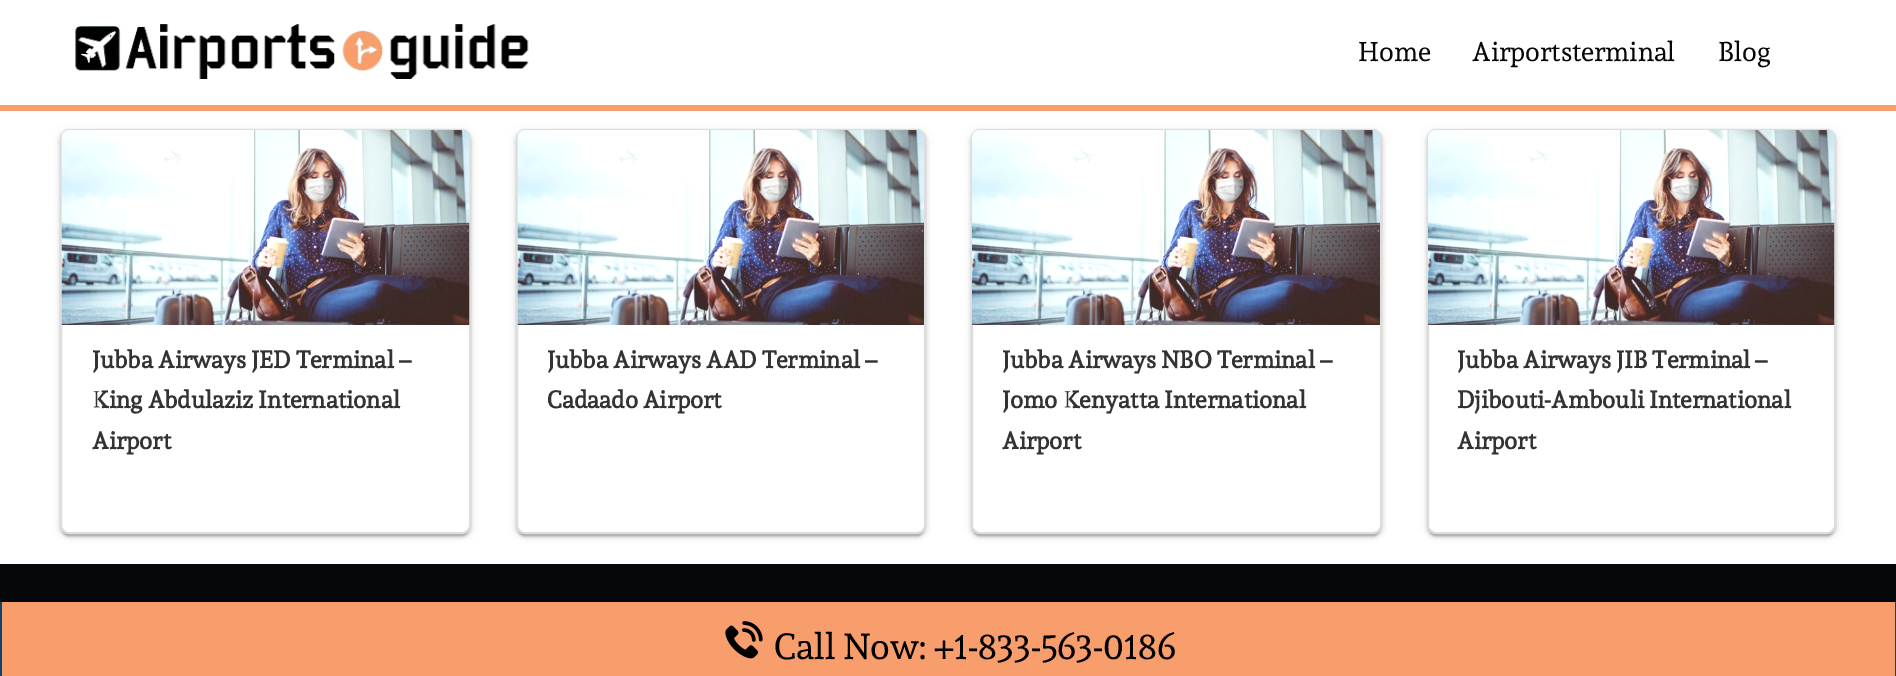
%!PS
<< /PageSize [1896 676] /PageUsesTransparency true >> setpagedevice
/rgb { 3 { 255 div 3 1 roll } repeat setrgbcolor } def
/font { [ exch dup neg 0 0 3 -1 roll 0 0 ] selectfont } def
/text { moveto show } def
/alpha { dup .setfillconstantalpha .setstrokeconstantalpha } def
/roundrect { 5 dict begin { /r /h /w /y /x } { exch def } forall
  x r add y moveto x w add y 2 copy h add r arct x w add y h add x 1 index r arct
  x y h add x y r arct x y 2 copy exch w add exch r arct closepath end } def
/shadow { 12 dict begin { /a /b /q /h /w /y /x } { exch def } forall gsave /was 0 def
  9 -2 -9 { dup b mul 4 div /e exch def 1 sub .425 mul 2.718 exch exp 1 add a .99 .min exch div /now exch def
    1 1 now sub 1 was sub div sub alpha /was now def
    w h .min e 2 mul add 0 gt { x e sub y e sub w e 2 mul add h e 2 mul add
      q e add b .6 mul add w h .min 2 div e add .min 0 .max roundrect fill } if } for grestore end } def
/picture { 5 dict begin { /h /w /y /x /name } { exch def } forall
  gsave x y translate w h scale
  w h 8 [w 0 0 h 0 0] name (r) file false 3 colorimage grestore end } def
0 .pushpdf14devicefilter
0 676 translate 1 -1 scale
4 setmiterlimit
255 255 255 rgb
0 0 1896 676 rectfill
248 158 108 rgb
0 105 1896 6 rectfill
(img_01.rgb) 75 24 454 55 picture
0 0 0 rgb
60 131 411 405 9 4 0.12 shadow
60 132 411 405 9 1.5 0.14 shadow
63 137 405 399 6 1 0.2 shadow
255 255 255 rgb
61 130 409 403 8 roundrect gsave fill grestore
221 221 221 rgb
2 setlinewidth
stroke
(img_02.rgb) 61 130 409 195 picture
0 0 0 rgb
516 131 410 405 9 4 0.12 shadow
516 132 410 405 9 1.5 0.14 shadow
519 137 404 399 6 1 0.2 shadow
255 255 255 rgb
517 130 408 403 8 roundrect gsave fill grestore
221 221 221 rgb
stroke
(img_03.rgb) 517 130 407 195 picture
0 0 0 rgb
971 131 411 405 9 4 0.12 shadow
971 132 411 405 9 1.5 0.14 shadow
974 137 405 399 6 1 0.2 shadow
255 255 255 rgb
972 130 409 403 8 roundrect gsave fill grestore
221 221 221 rgb
stroke
(img_04.rgb) 972 130 408 195 picture
0 0 0 rgb
1427 131 409 405 9 4 0.12 shadow
1427 132 409 405 9 1.5 0.14 shadow
1430 137 403 399 6 1 0.2 shadow
255 255 255 rgb
1428 130 407 403 8 roundrect gsave fill grestore
221 221 221 rgb
stroke
(img_05.rgb) 1428 130 407 195 picture
5 7 8 rgb
0 564 1896 38 rectfill
248 158 108 rgb
2 602 1893 74 rectfill
18 67 107 rgb
1895 602 1 74 rectfill
0 602 2 74 rectfill
(img_06.rgb) 725 621 38 38 picture
/Sura-Regular 27 font
5 7 8 rgb
(Home) 1358 61 text
(Airportsterminal) 1472 61 text
(Blog) 1718 61 text
/Sura-Bold 24 font
51 51 51 rgb
(Jubba Airways JED Terminal –) 92 368 text
(King Abdulaziz International) 92 408 text
(Airport) 92 449 text
(Jubba Airways AAD Terminal –) 547 368 text
(Cadaado Airport) 547 408 text
(Jubba Airways NBO Terminal –) 1002 368 text
(Jomo Kenyatta International) 1002 408 text
(Airport) 1002 449 text
(Jubba Airways JIB Terminal –) 1457 368 text
(Djibouti-Ambouli International) 1457 408 text
(Airport) 1457 449 text
/Sura-Regular 36 font
0 0 0 rgb
(Call Now: +1-833-563-0186) 774 659 text
.poppdf14devicefilter showpage
